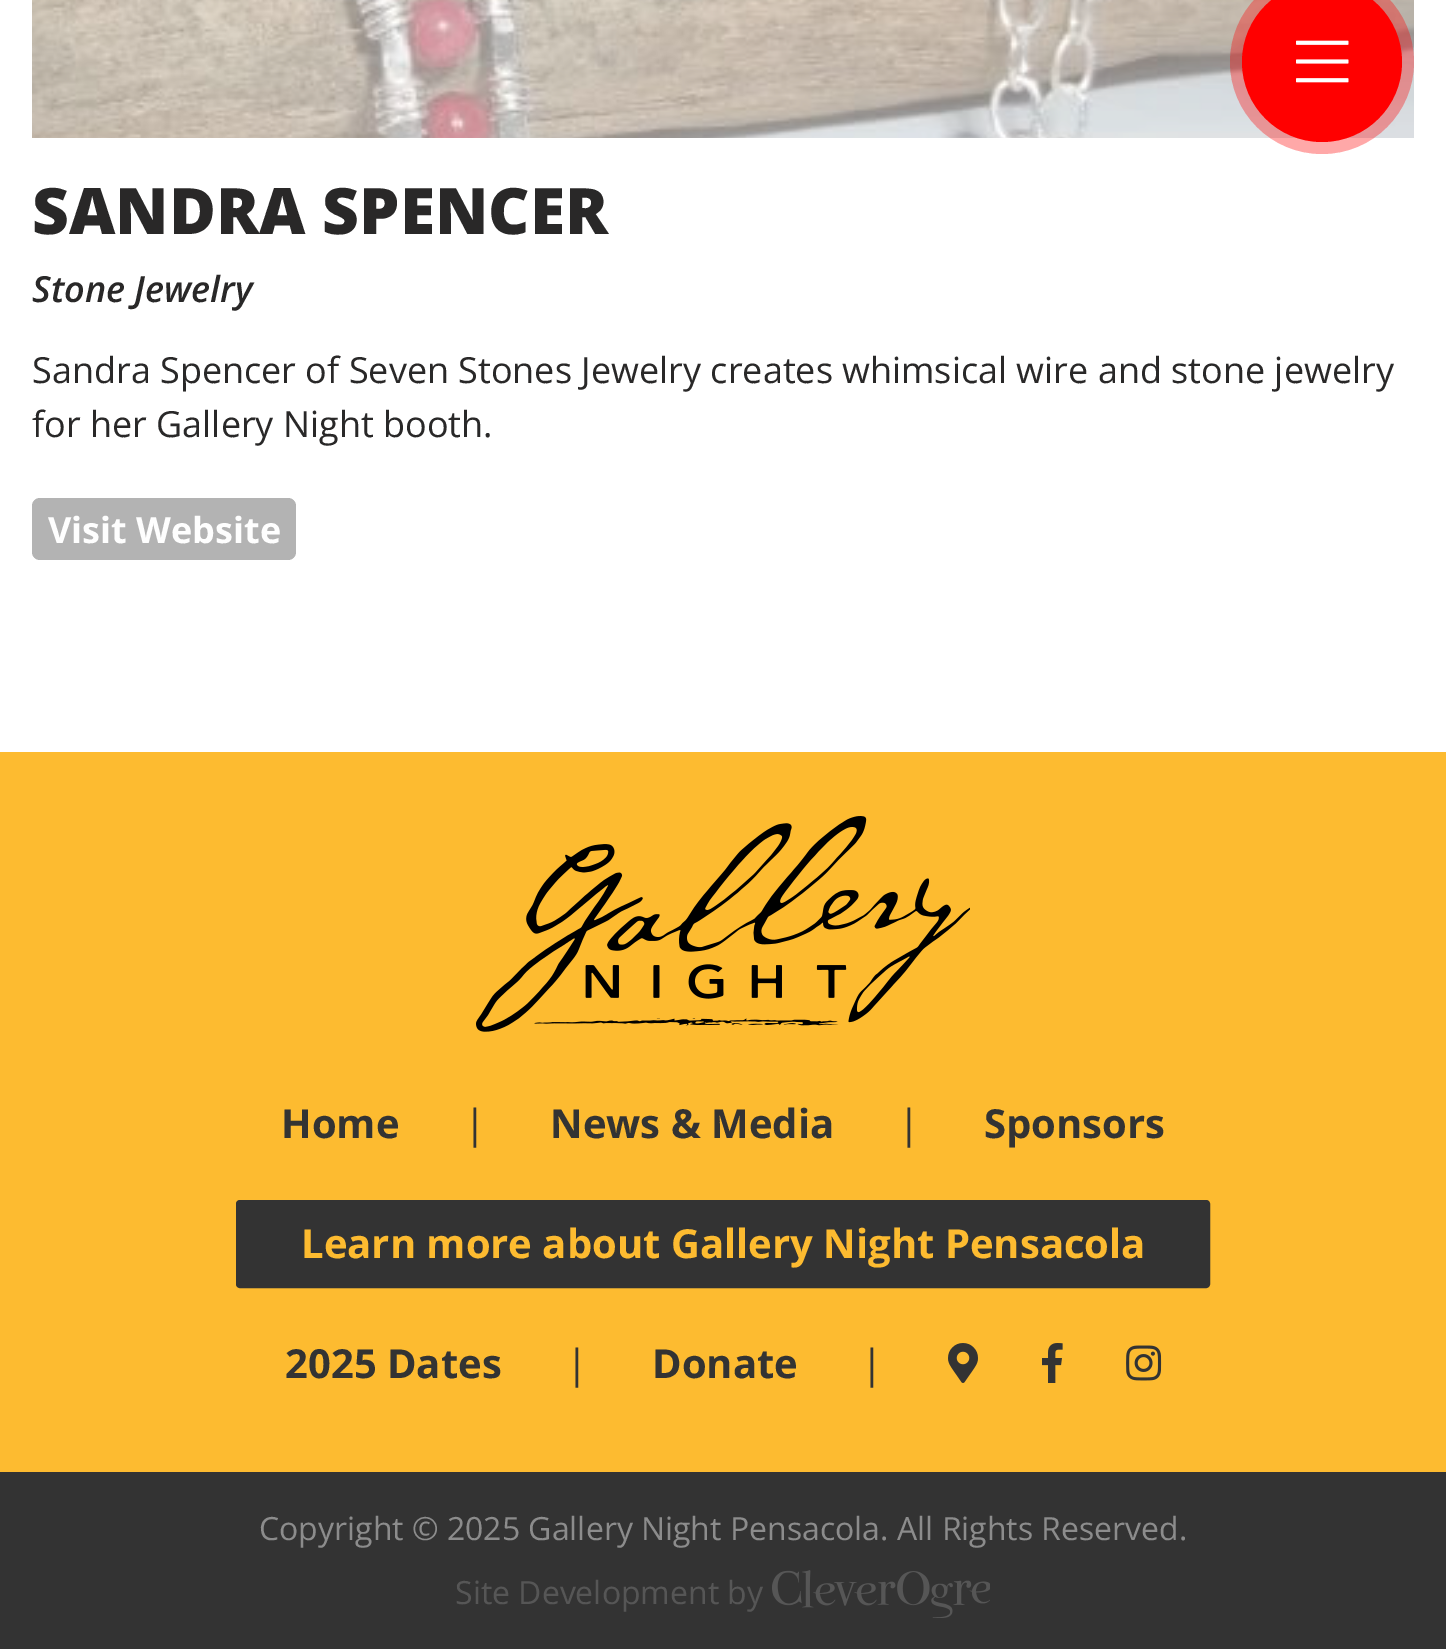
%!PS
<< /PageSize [1446 1649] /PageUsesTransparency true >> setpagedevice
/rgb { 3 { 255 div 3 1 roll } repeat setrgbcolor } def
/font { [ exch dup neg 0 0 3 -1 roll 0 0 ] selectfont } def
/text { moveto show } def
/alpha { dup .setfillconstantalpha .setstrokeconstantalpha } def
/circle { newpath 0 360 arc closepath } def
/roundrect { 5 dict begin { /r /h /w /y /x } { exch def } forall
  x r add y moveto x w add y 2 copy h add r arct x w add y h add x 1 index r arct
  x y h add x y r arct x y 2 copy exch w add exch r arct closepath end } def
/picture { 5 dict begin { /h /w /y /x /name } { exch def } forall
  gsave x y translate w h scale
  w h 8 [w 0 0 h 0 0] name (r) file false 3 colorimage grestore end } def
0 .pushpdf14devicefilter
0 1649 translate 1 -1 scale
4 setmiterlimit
255 255 255 rgb
0 0 1446 1649 rectfill
(img_02.rgb) 32 0 1382 138 picture
0.34 alpha
255 0 0 rgb
1322 62 92 circle fill
1 alpha
1322 62 80 circle fill
(img_01.rgb) 1296 40 53 43 picture
179 179 179 rgb
32 498 264 62 8 roundrect fill
253 187 48 rgb
0 752 1446 720 rectfill
(img_03.rgb) 476 816 494 216 picture
51 51 51 rgb
238 1202 970 84 2 roundrect gsave fill grestore
4 setlinewidth
stroke
(img_04.rgb) 948 1343 30 40 picture
(img_05.rgb) 1042 1343 21 40 picture
(img_06.rgb) 1126 1345 36 36 picture
0 1472 1446 177 rectfill
(img_07.rgb) 772 1570 218 48 picture
/OpenSans-ExtraBold 64 font
41 40 40 rgb
(SANDRA SPENCER) 32 234 text
/OpenSans-SemiBoldItalic 36 font
(Stone Jewelry) 32 302 text
/OpenSans-Regular 36 font
(Sandra Spencer of Seven Stones Jewelry creates whimsical wire and stone jewelry) 32 383 text
(for her Gallery Night booth.) 32 437 text
/OpenSans-Bold 36 font
254 254 254 rgb
(Visit Website) 48 543 text
/OpenSans-Bold 40 font
51 51 51 rgb
(Home) 281 1138 text
/OpenSans-Regular 40 font
(|) 464 1138 text
/OpenSans-Bold 40 font
(News & Media) 550 1138 text
/OpenSans-Regular 40 font
(|) 898 1138 text
/OpenSans-Bold 40 font
(Sponsors) 984 1138 text
253 187 48 rgb
(Learn more about Gallery Night Pensacola) 301 1258 text
51 51 51 rgb
(2025 Dates) 285 1378 text
/OpenSans-Regular 40 font
(|) 566 1378 text
/OpenSans-Bold 40 font
(Donate) 652 1378 text
/OpenSans-Regular 40 font
(|) 861 1378 text
/OpenSans-Regular 32 font
140 140 140 rgb
(Copyright © 2025 Gallery Night Pensacola. All Rights Reserved.) 259 1540 text
86 86 86 rgb
(Site Development by) 455 1604 text
.poppdf14devicefilter showpage
